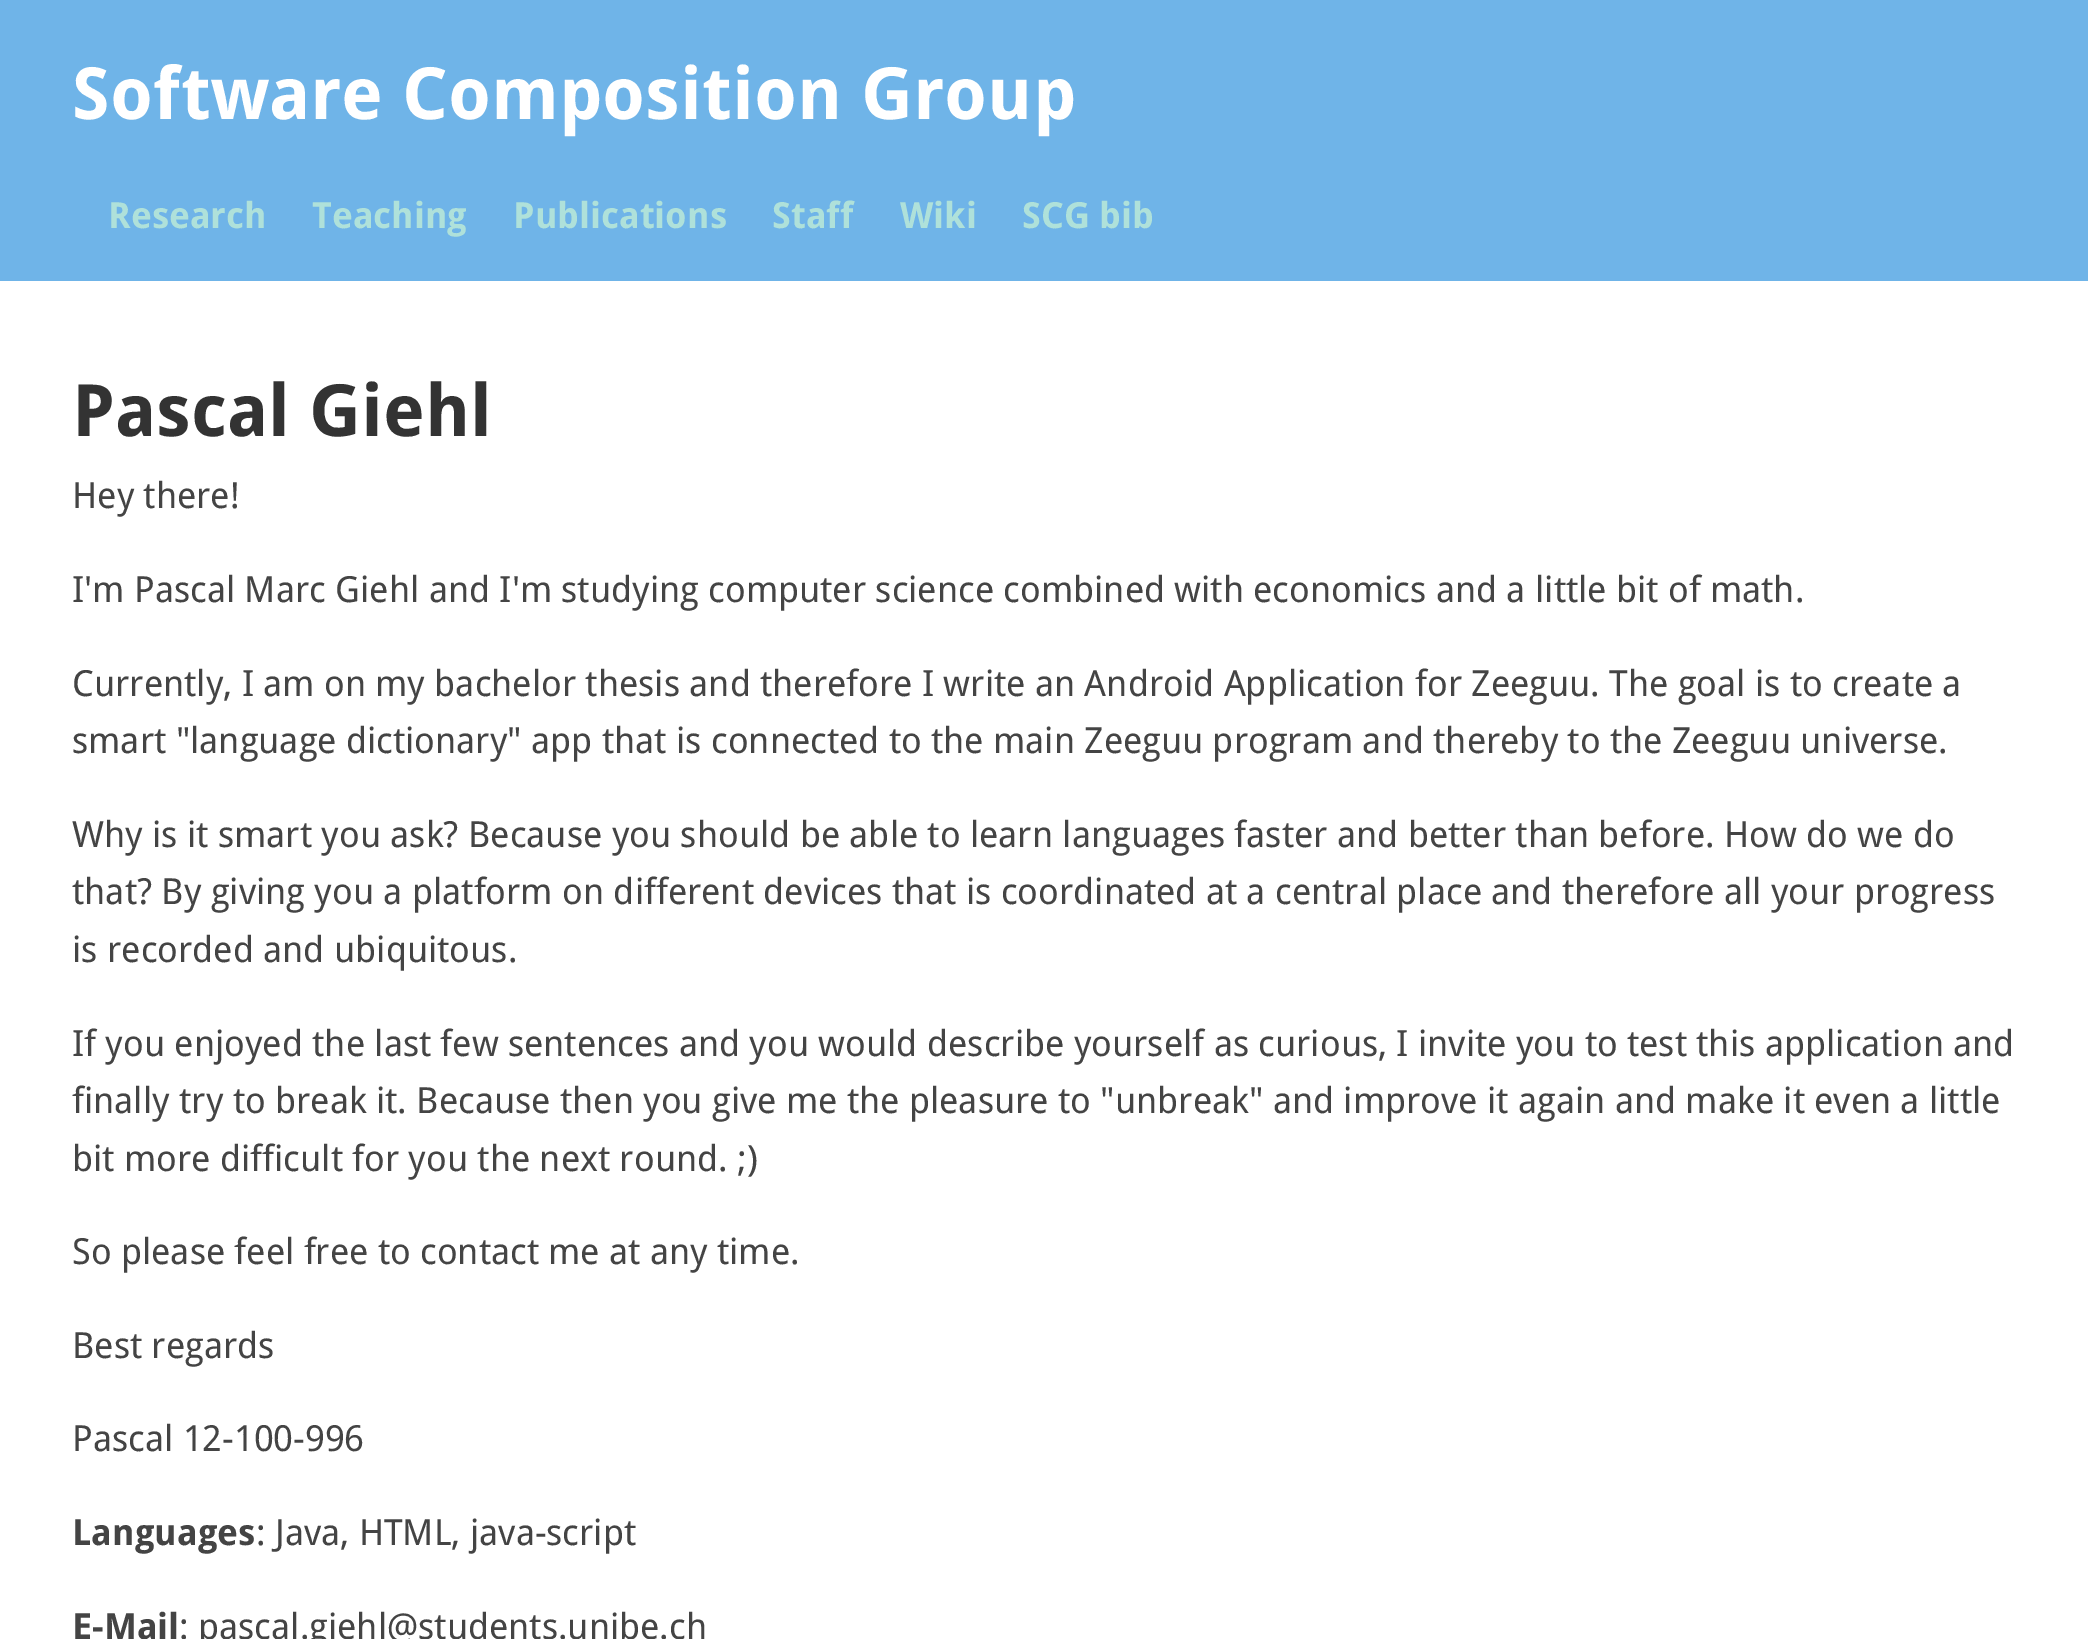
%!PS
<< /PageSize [2088 1639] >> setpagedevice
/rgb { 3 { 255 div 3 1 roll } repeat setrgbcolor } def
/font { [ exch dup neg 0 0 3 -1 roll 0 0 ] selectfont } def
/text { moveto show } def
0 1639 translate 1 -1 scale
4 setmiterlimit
255 255 255 rgb
0 0 2088 1639 rectfill
111 180 232 rgb
0 0 2088 281 rectfill
/DroidSans-Bold 72 font
255 255 255 rgb
(Software Composition Group) 72 119 text
/DroidSans-Bold 36 font
175 225 218 rgb
(Research) 108 228 text
(Teaching) 312 228 text
(Publications) 513 228 text
(Staff) 772 228 text
(Wiki) 900 228 text
(SCG bib) 1022 228 text
/DroidSans-Bold 72 font
51 51 51 rgb
(Pascal Giehl) 72 436 text
/DroidSans-Regular 36 font
68 68 68 rgb
(Hey there!) 72 508 text
(I'm Pascal Marc Giehl and I'm studying computer science combined with economics and a little bit of math.) 72 602 text
(Currently, I am on my bachelor thesis and therefore I write an Android Application for Zeeguu. The goal is to create a) 72 696 text
(smart "language dictionary" app that is connected to the main Zeeguu program and thereby to the Zeeguu universe.) 72 753 text
(Why is it smart you ask? Because you should be able to learn languages faster and better than before. How do we do) 72 847 text
(that? By giving you a platform on different devices that is coordinated at a central place and therefore all your progress) 72 904 text
(is recorded and ubiquitous.) 72 962 text
(If you enjoyed the last few sentences and you would describe yourself as curious, I invite you to test this application and) 72 1056 text
(finally try to break it. Because then you give me the pleasure to "unbreak" and improve it again and make it even a little) 72 1113 text
(bit more difficult for you the next round. ;\)) 72 1171 text
(So please feel free to contact me at any time.) 72 1264 text
(Best regards) 72 1358 text
(Pascal 12-100-996) 72 1451 text
/DroidSans-Bold 36 font
(Languages) 72 1545 text
/DroidSans-Regular 36 font
(: Java, HTML, java-script) 256 1545 text
/DroidSans-Bold 36 font
(E-Mail) 72 1639 text
/DroidSans-Regular 36 font
(: pascal.giehl@students.unibe.ch) 179 1639 text
showpage
